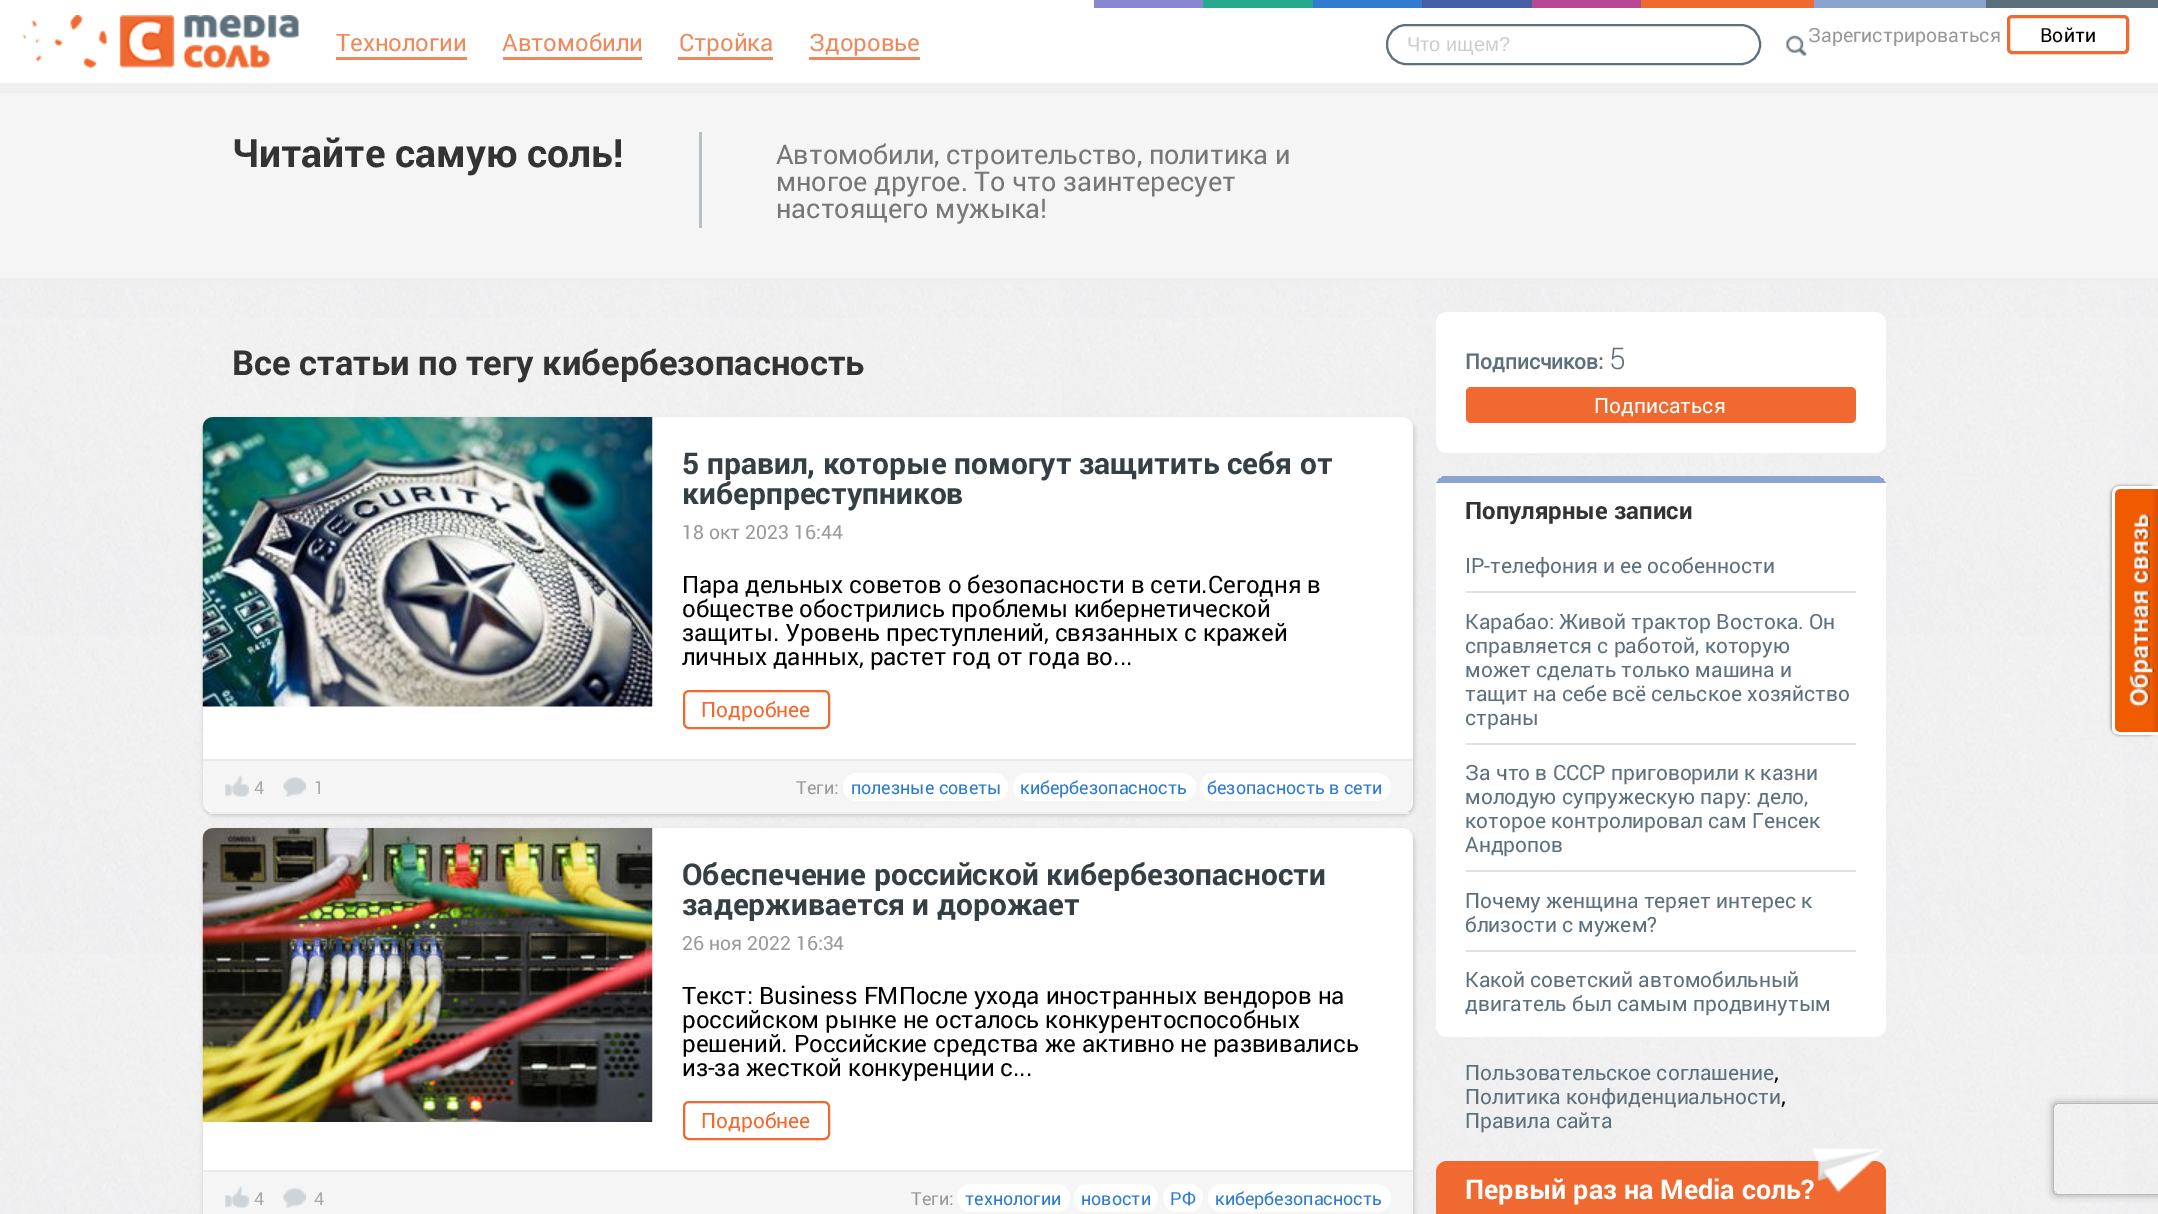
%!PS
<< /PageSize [2158 1214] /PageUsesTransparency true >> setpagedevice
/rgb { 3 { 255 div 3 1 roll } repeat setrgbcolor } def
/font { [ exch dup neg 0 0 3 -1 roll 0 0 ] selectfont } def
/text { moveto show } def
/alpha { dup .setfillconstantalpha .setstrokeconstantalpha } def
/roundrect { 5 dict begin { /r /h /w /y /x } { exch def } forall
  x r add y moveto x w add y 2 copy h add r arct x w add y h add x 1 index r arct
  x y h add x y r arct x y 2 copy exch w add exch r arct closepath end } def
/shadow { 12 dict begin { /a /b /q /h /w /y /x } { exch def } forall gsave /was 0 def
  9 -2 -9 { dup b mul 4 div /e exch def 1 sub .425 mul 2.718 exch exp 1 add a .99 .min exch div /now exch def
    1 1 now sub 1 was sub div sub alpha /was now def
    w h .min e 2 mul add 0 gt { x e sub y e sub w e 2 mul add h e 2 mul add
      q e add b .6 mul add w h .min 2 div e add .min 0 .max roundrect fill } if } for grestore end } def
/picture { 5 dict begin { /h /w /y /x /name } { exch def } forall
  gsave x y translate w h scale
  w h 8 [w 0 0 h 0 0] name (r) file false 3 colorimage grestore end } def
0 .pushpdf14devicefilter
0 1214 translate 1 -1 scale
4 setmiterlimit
255 255 255 rgb
0 0 2158 1214 rectfill
(img_01.rgb) 0 278 2158 936 picture
139 134 208 rgb
1094 0 109 8 rectfill
39 169 142 rgb
1203 0 110 8 rectfill
49 124 207 rgb
1313 0 109 8 rectfill
69 96 160 rgb
1422 0 110 8 rectfill
184 72 147 rgb
1532 0 109 8 rectfill
240 105 48 rgb
1641 0 173 8 rectfill
140 163 208 rgb
1814 0 172 8 rectfill
92 112 123 rgb
1986 0 172 8 rectfill
(img_02.rgb) 22 15 277 53 picture
239 137 93 rgb
336 57 131 3 rectfill
503 57 139 3 rectfill
678 57 95 3 rectfill
809 57 111 3 rectfill
93 112 123 rgb
2 setlinewidth
1387 25 373 39 19 roundrect stroke
(img_03.rgb) 1786 35 21 21 picture
239 105 48 rgb
3 setlinewidth
2008.5 16.5 119 36 3.5 roundrect stroke
245 245 245 rgb
0 93 2158 185 rectfill
239 239 239 rgb
0 83 2158 10 rectfill
184 192 196 rgb
699 132 3 96 rectfill
204 204 204 rgb
203 419 1212 397 12 2 1 shadow
255 255 255 rgb
203 417 1210 396 11 roundrect fill
238 238 238 rgb
209 812 1200 2 rectfill
(img_04.rgb) 202 417 451 290 picture
239 105 48 rgb
2 setlinewidth
684 691 145 37 5 roundrect stroke
245 245 245 rgb
203 759 moveto 1210 0 rlineto 0 42 rlineto 0 6 -5 11 -11 11 rcurveto -1188 0 rlineto -6 0 -11 -5 -11 -11 rcurveto closepath fill
234 234 234 rgb
203 759 1210 2 rectfill
(img_05.rgb) 225 775 24 22 picture
(img_06.rgb) 283 777 23 20 picture
255 255 255 rgb
843 773 165 28 14 roundrect fill
1013 773 183 28 14 roundrect fill
1200 773 191 28 14 roundrect fill
204 204 204 rgb
203 830 1212 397 12 2 1 shadow
255 255 255 rgb
203 828 1210 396 11 roundrect fill
(img_07.rgb) 202 828 451 294 picture
239 105 48 rgb
684 1102 145 37 5 roundrect stroke
245 245 245 rgb
203 1170 moveto 1210 0 rlineto 0 42 rlineto 0 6 -5 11 -11 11 rcurveto -1188 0 rlineto -6 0 -11 -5 -11 -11 rcurveto closepath fill
234 234 234 rgb
203 1170 1210 2 rectfill
(img_05.rgb) 225 1186 24 22 picture
(img_06.rgb) 283 1188 23 20 picture
255 255 255 rgb
957 1184 113 28 14 roundrect fill
1074 1184 84 28 14 roundrect fill
1163 1184 40 28 14 roundrect fill
1208 1184 183 28 14 roundrect fill
1436 312 450 141 11 roundrect fill
240 105 48 rgb
1466 387 390 36 5 roundrect fill
255 255 255 rgb
1436 476 450 561 11 roundrect fill
gsave
1436 476 450 561 11 roundrect clip newpath
140 163 208 rgb
1436 476 450 7 rectfill
grestore
223 226 229 rgb
1466 591 390 2 rectfill
1466 743 390 2 rectfill
1466 870 390 2 rectfill
1466 950 390 2 rectfill
240 105 48 rgb
1447 1161 moveto 428 0 rlineto 6 0 11 5 11 11 rcurveto 0 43 rlineto -450 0 rlineto 0 -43 rlineto 0 -6 5 -11 11 -11 rcurveto closepath fill
136 136 136 rgb
2111 486 46 249 8 1.5 1 shadow
240 90 0 rgb
2120 486 moveto 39 0 rlineto 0 249 rlineto -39 0 rlineto -4.5 0 -8 -3.5 -8 -8 rcurveto 0 -233 rlineto 0 -4.5 3.5 -8 8 -8 rcurveto closepath fill
(img_09.rgb) 2153 489 5 243 picture
255 255 255 rgb
2120 486 moveto 38 0 rlineto 0 249 rlineto -38 0 rlineto -5 0 -8 -3 -8 -7 rcurveto 0 -234 rlineto 0 -5 3 -8 8 -8 rcurveto closepath 2120 489 moveto 38 0 rlineto 0 243 rlineto -38 0 rlineto -3 0 -5 -2 -5 -4 rcurveto 0 -234 rlineto 0 -3 2 -5 5 -5 rcurveto closepath eofill
(img_10.rgb) 2129 514 25 193 picture
gsave
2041 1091 moveto 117 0 rlineto 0 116 rlineto -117 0 rlineto closepath 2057 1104 moveto 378 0 rlineto 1.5 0 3 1.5 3 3 rcurveto 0 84 rlineto 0 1.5 -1.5 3 -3 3 rcurveto -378 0 rlineto -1.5 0 -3 -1.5 -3 -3 rcurveto 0 -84 rlineto 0 -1.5 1.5 -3 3 -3 rcurveto closepath eoclip newpath
128 128 128 rgb
2054 1104 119 90 3 4 1 shadow
grestore
/Roboto-Regular 24 font
239 137 93 rgb
(Технологии) 336 51 text
(Автомобили) 502 51 text
(Стройка) 679 51 text
(Здоровье) 809 51 text
/LiberationSans-Regular 20 font
204 204 204 rgb
(Что ищем?) 1407 51 text
/Roboto-Regular 19.5 font
153 153 153 rgb
(Зарегистрироваться) 1808 42 text
0 0 0 rgb
(Войти) 2040 42 text
/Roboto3-Bold 39 font
51 51 51 rgb
(Читайте самую соль!) 232 167 text
/Roboto-Regular 27 font
119 119 119 rgb
(Автомобили, строительство, политика и) 776 164 text
(многое другое. То что заинтересует) 776 191 text
(настоящего мужыка!) 776 218 text
/Roboto-Bold 34.5 font
51 51 51 rgb
(Все статьи по тегу кибербезопасность) 232 375 text
/Roboto3-Bold 30 font
53 63 68 rgb
(5 правил, которые помогут защитить себя от) 682 474 text
(киберпреступников) 682 504 text
/Roboto-Regular 19.5 font
153 153 153 rgb
(18 окт 2023 16:44) 682 539 text
/Roboto-Regular 24 font
0 0 0 rgb
(Пара дельных советов о безопасности в сети.Сегодня в) 682 593 text
(обществе обострились проблемы кибернетической) 682 617 text
(защиты. Уровень преступлений, связанных с кражей) 682 641 text
(личных данных, растет год от года во...) 682 665 text
/Roboto-Regular 21 font
239 105 48 rgb
(Подробнее) 701 717 text
/Roboto-Regular 18 font
170 170 170 rgb
(4) 254 794 text
(1) 314 794 text
153 153 153 rgb
(Теги:) 796 794 text
44 122 210 rgb
(полезные советы) 851 794 text
(кибербезопасность) 1020 794 text
(безопасность в сети) 1207 794 text
/Roboto3-Bold 30 font
53 63 68 rgb
(Обеспечение российской кибербезопасности) 682 885 text
(задерживается и дорожает) 682 915 text
/Roboto-Regular 19.5 font
153 153 153 rgb
(26 ноя 2022 16:34) 682 950 text
/Roboto-Regular 24 font
0 0 0 rgb
(Текст: Business FMПосле ухода иностранных вендоров на) 682 1004 text
(российском рынке не осталось конкурентоспособных) 682 1028 text
(решений. Российские средства же активно не развивались) 682 1052 text
(из-за жесткой конкуренции с...) 682 1076 text
/Roboto-Regular 21 font
239 105 48 rgb
(Подробнее) 701 1128 text
/Roboto-Regular 18 font
170 170 170 rgb
(4) 254 1205 text
(4) 314 1205 text
153 153 153 rgb
(Теги:) 911 1205 text
44 122 210 rgb
(технологии) 965 1205 text
(новости) 1081 1205 text
(РФ) 1170 1205 text
(кибербезопасность) 1215 1205 text
/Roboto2-Bold 21 font
93 112 123 rgb
(Подписчиков:) 1465 369 text
/Roboto-Light 30 font
(5) 1609 369 text
/Roboto-Regular 21 font
255 255 255 rgb
(Подписаться) 1594 413 text
/Roboto3-Bold 24 font
51 51 51 rgb
(Популярные записи) 1465 519 text
/Roboto-Regular 21 font
93 112 123 rgb
(IP-телефония и ее особенности) 1465 573 text
(Карабао: Живой трактор Востока. Он) 1465 629 text
(справляется с работой, которую) 1465 653 text
(может сделать только машина и) 1465 677 text
(тащит на себе всё сельское хозяйство) 1465 701 text
(страны) 1465 725 text
(За что в СССР приговорили к казни) 1465 780 text
(молодую супружескую пару: дело,) 1465 804 text
(которое контролировал сам Генсек) 1465 828 text
(Андропов) 1465 852 text
(Почему женщина теряет интерес к) 1465 908 text
(близости с мужем?) 1465 932 text
(Какой советский автомобильный) 1465 987 text
(двигатель был самым продвинутым) 1465 1011 text
(Пользовательское соглашение) 1465 1080 text
/Roboto-Regular 24 font
0 0 0 rgb
(,) 1774 1080 text
/Roboto-Regular 21 font
93 112 123 rgb
(Политика конфиденциальности) 1465 1104 text
/Roboto-Regular 24 font
0 0 0 rgb
(,) 1781 1104 text
/Roboto-Regular 21 font
93 112 123 rgb
(Правила сайта) 1465 1128 text
/Roboto3-Bold 27 font
255 255 255 rgb
(Первый раз на Media соль?) 1465 1199 text
(img_08.rgb) 1812 1148 72 45 picture
.poppdf14devicefilter showpage
